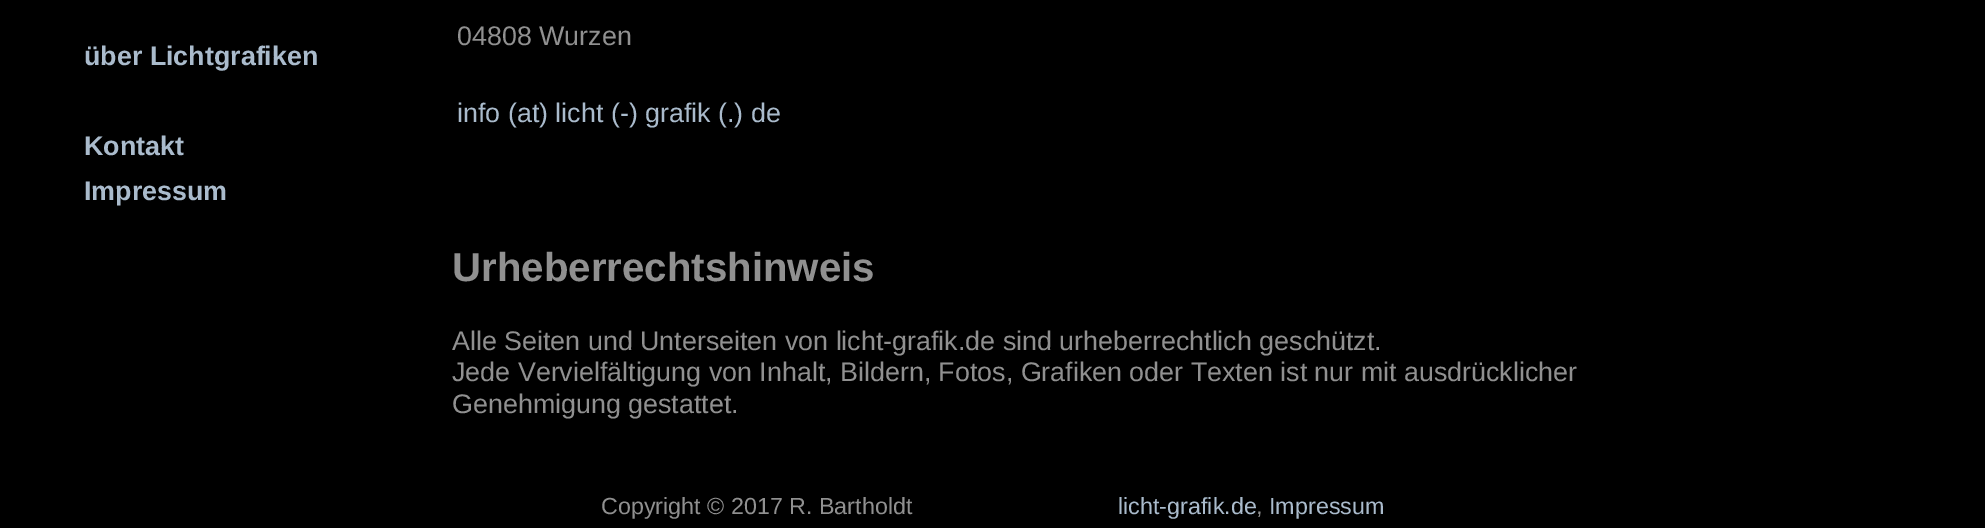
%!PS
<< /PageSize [1985 528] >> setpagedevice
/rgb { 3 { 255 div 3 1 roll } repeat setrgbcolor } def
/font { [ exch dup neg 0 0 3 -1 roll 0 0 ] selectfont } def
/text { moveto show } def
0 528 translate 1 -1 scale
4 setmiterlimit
0 0 0 rgb
0 0 1985 528 rectfill
/LiberationSans-Bold 26.85 font
170 187 204 rgb
(über Lichtgrafiken) 84 65 text
(Kontakt) 84 155 text
(Impressum) 84 200 text
/LiberationSans-Regular 26.85 font
144 144 144 rgb
(04808 Wurzen) 457 45 text
170 187 204 rgb
(info \(at\) licht \(-\) grafik \(.\) de) 457 122 text
/LiberationSans-Bold 40.25 font
144 144 144 rgb
(Urheberrechtshinweis) 452 281 text
/LiberationSans-Regular 26.85 font
(Alle Seiten und Unterseiten von licht-grafik.de sind urheberrechtlich geschützt.) 452 350 text
(Jede Vervielfältigung von Inhalt, Bildern, Fotos, Grafiken oder Texten ist nur mit ausdrücklicher) 452 381 text
(Genehmigung gestattet.) 452 413 text
/LiberationSans-Regular 23.3 font
(Copyright © 2017 R. Bartholdt) 601 514 text
170 187 204 rgb
(licht-grafik.de) 1118 514 text
144 144 144 rgb
(,) 1256 514 text
170 187 204 rgb
(Impressum) 1269 514 text
showpage
